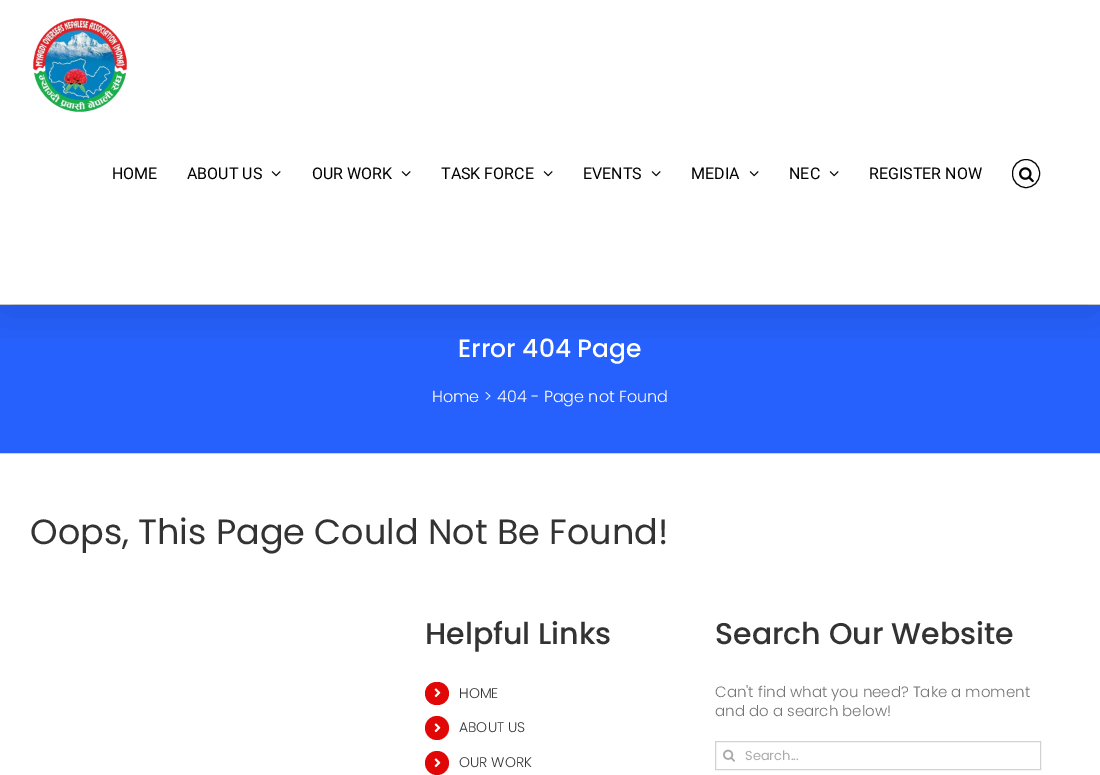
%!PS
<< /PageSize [1100 775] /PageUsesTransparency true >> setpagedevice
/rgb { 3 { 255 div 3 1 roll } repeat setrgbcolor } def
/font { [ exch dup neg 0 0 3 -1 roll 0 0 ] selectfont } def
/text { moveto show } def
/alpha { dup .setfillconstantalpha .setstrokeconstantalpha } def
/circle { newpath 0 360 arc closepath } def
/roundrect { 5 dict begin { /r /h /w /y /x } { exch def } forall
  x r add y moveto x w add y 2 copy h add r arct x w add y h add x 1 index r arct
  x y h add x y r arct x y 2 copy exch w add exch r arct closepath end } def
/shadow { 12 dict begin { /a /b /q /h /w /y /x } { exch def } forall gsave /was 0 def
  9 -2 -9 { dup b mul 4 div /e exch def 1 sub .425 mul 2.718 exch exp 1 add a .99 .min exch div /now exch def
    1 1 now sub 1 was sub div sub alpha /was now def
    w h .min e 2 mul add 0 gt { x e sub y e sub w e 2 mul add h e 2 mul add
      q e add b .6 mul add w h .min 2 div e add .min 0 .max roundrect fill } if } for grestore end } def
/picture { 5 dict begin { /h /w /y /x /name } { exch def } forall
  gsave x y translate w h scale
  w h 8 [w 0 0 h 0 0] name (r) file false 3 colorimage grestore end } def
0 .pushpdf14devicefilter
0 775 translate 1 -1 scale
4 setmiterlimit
255 255 255 rgb
0 0 1100 775 rectfill
38 96 253 rgb
0 305 1100 148 rectfill
210 211 212 rgb
0 304 1100 1 rectfill
gsave
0 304 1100 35 rectclip
0 0 0 rgb
2 12 1096 300 0 25 0.14 shadow
grestore
(img_01.rgb) 33 18 94 94 picture
(img_02.rgb) 271 171 10 6 picture
(img_02.rgb) 401 171 10 6 picture
(img_02.rgb) 543 171 10 6 picture
(img_02.rgb) 651 171 10 6 picture
(img_02.rgb) 749 171 10 6 picture
(img_02.rgb) 829 171 10 6 picture
0 0 0 rgb
1012.5 159.5 27 28 13.5 roundrect stroke
(img_03.rgb) 1019 167 15 16 picture
210 211 212 rgb
0 453 1100 1 rectfill
225 7 7 rgb
425 682 24 23 11.5 roundrect fill
(img_04.rgb) 434 688 7 10 picture
437 728 12 circle fill
(img_04.rgb) 434 723 7 10 picture
437 763 12 circle fill
(img_04.rgb) 434 758 7 10 picture
210 210 210 rgb
715.5 741.5 325 28 rectstroke
(img_05.rgb) 723 749 12 13 picture
/Roboto-Regular 16 font
0 0 0 rgb
(HOME) 112 179 text
(ABOUT US) 187 179 text
(OUR WORK) 312 179 text
(TASK FORCE) 441 179 text
(EVENTS) 583 179 text
(MEDIA) 691 179 text
(NEC) 789 179 text
(REGISTER NOW) 869 179 text
/Poppins-Medium 25 font
255 255 255 rgb
(Error 404 Page) 458 357 text
/Poppins-Light 16 font
(Home) 432 402 text
(>) 484 402 text
(404 - Page not Found) 497 402 text
/Poppins-Regular 35 font
51 51 51 rgb
(Oops, This Page Could Not Be Found!) 30 544 text
/Poppins-Medium 30 font
(Helpful Links) 425 644 text
/Poppins-Light 14 font
(HOME) 459 698 text
(ABOUT US) 459 732 text
(OUR WORK) 459 767 text
/Poppins-Medium 30 font
(Search Our Website) 715 644 text
/Poppins-Light 15 font
116 116 116 rgb
(Can't find what you need? Take a moment) 715 697 text
(and do a search below!) 715 716 text
/Poppins-Regular 13 font
170 169 169 rgb
(Search...) 745 760 text
.poppdf14devicefilter showpage
